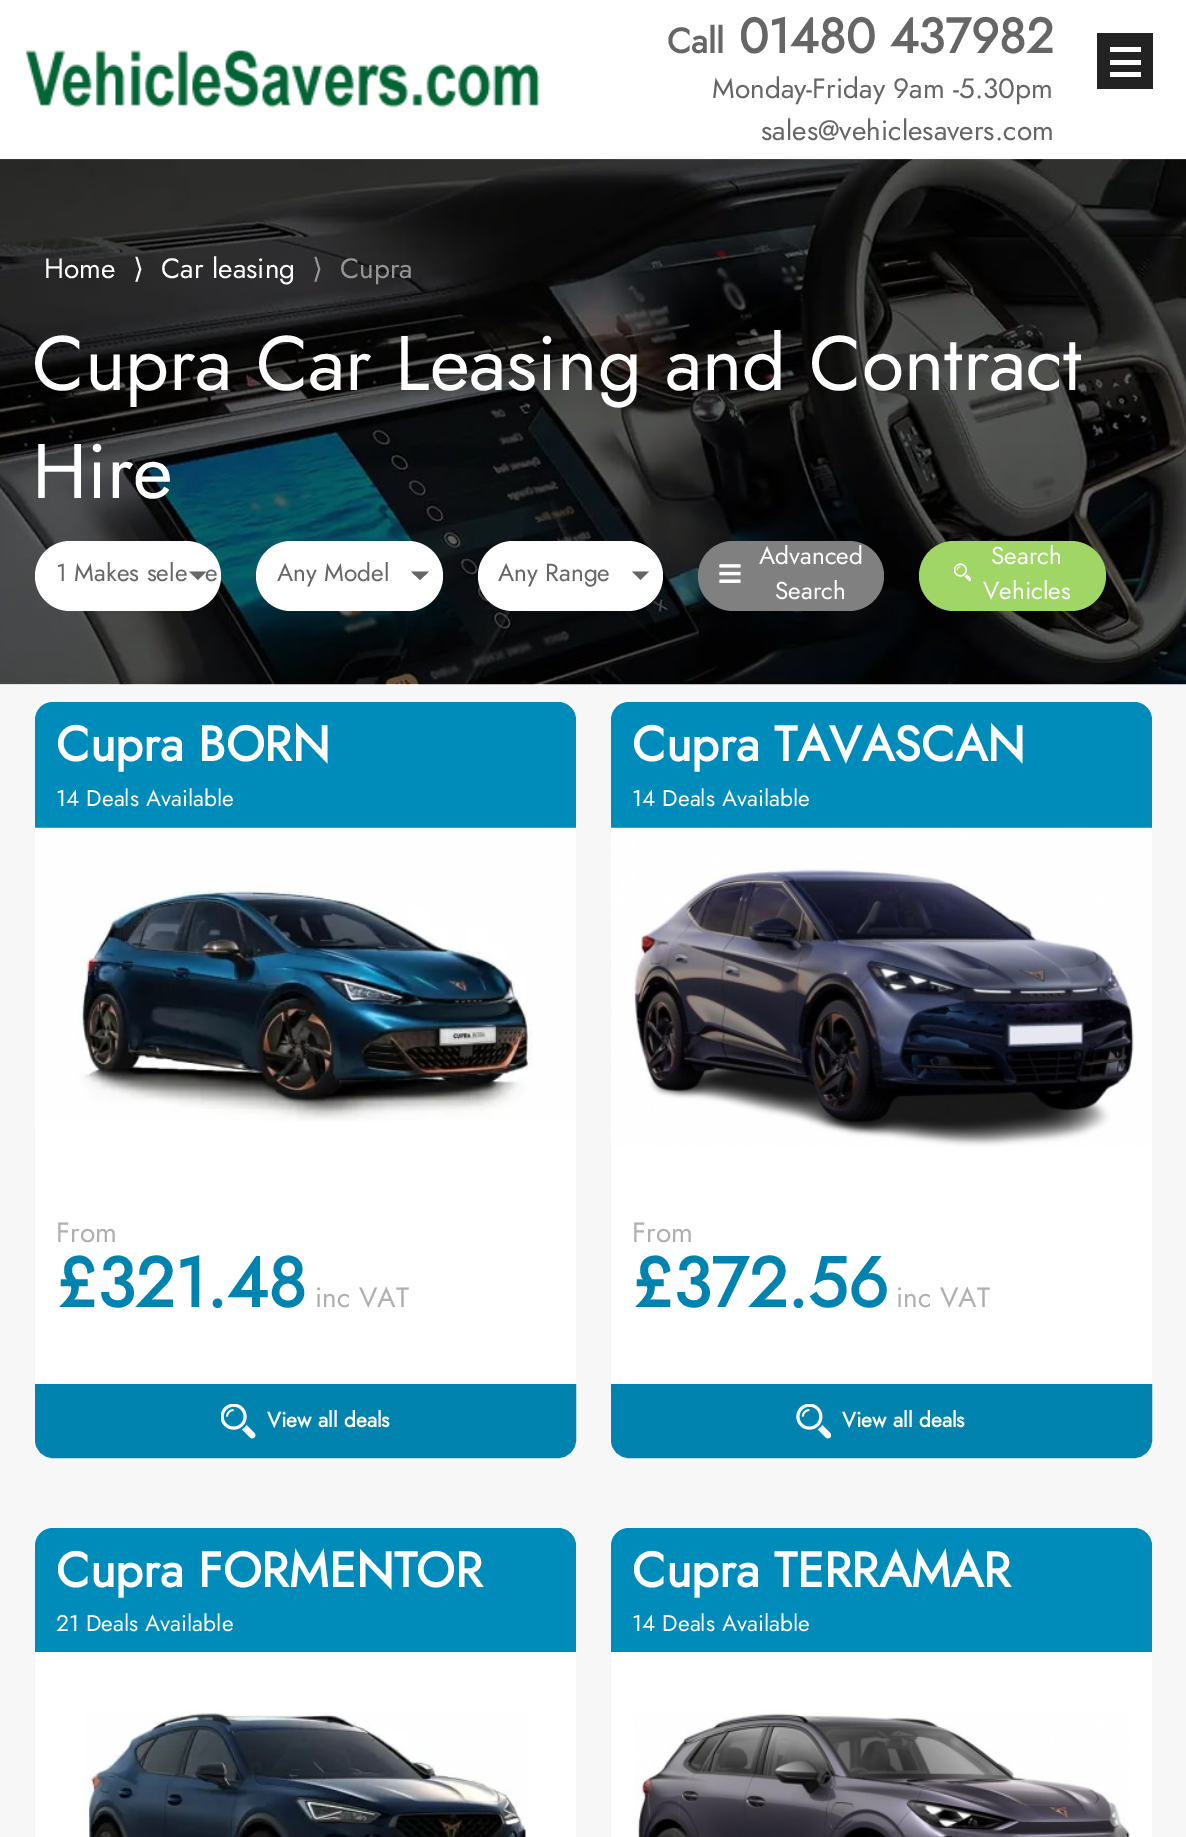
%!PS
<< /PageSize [1186 1837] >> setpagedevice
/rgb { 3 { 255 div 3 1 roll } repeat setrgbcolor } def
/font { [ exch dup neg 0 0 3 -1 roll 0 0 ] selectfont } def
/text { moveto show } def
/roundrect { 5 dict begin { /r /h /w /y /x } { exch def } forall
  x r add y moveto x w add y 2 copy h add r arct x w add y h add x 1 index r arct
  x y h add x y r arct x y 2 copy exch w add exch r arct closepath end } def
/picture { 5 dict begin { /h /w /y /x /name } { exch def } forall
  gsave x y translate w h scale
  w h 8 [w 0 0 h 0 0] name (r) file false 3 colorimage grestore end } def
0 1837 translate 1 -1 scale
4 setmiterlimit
255 255 255 rgb
0 0 1186 1837 rectfill
(img_01.rgb) 25 50 515 58 picture
34 34 34 rgb
1097 33 56 56 rectfill
255 255 255 rgb
1110 47 31 5 rectfill
1110 60 31 5 rectfill
1110 72 31 5 rectfill
247 247 247 rgb
0 159 1186 1678 rectfill
(img_02.rgb) 0 159 1186 526 picture
255 255 255 rgb
35 541 186 70 35 roundrect fill
102 102 102 rgb
189 571.5 moveto 17.5 0 rlineto -8.5 8.5 rlineto closepath fill
255 255 255 rgb
256 541 187 70 35 roundrect fill
102 102 102 rgb
411 571.5 moveto 18 0 rlineto -9 8.5 rlineto closepath fill
255 255 255 rgb
478 541 185 70 35 roundrect fill
102 102 102 rgb
632 571.5 moveto 17 0 rlineto -8.5 8.5 rlineto closepath fill
128 128 128 rgb
698 541 186 70 35 roundrect fill
(img_03.rgb) 719 564 22 19 picture
160 214 102 rgb
919 541 187 70 35 roundrect fill
(img_04.rgb) 954 563 17 19 picture
255 255 255 rgb
35 702 541 756 18 roundrect fill
0 140 186 rgb
53 702 moveto 505 0 rlineto 10 0 18 8 18 18 rcurveto 0 108 rlineto -541 0 rlineto 0 -108 rlineto 0 -10 8 -18 18 -18 rcurveto closepath fill
(img_05.rgb) 35 827 541 295 picture
0 131 174 rgb
36 1385 moveto 539 0 rlineto 0 55 rlineto 0 9.5 -7.5 17 -17 17 rcurveto -505 0 rlineto -9.5 0 -17 -7.5 -17 -17 rcurveto closepath gsave fill grestore
2 setlinewidth
stroke
(img_06.rgb) 221 1404 35 35 picture
255 255 255 rgb
611 702 541 756 18 roundrect fill
0 140 186 rgb
629 702 moveto 505 0 rlineto 10 0 18 8 18 18 rcurveto 0 108 rlineto -541 0 rlineto 0 -108 rlineto 0 -10 8 -18 18 -18 rcurveto closepath fill
(img_07.rgb) 611 827 541 320 picture
0 131 174 rgb
612 1385 moveto 539 0 rlineto 0 55 rlineto 0 9.5 -7.5 17 -17 17 rcurveto -505 0 rlineto -9.5 0 -17 -7.5 -17 -17 rcurveto closepath gsave fill grestore
stroke
(img_08.rgb) 796 1404 35 35 picture
255 255 255 rgb
35 1528 541 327 18 roundrect fill
0 140 186 rgb
53 1528 moveto 505 0 rlineto 10 0 18 8 18 18 rcurveto 0 106 rlineto -541 0 rlineto 0 -106 rlineto 0 -10 8 -18 18 -18 rcurveto closepath fill
(img_09.rgb) 84 1711 443 126 picture
255 255 255 rgb
611 1528 541 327 18 roundrect fill
0 140 186 rgb
629 1528 moveto 505 0 rlineto 10 0 18 8 18 18 rcurveto 0 106 rlineto -541 0 rlineto 0 -106 rlineto 0 -10 8 -18 18 -18 rcurveto closepath fill
(img_10.rgb) 634 1710 496 127 picture
/Jost-Bold 35 font
102 102 102 rgb
(Call) 667 53 text
/Jost-Bold 49 font
(01480 437982) 739 53 text
/Jost-Regular 28 font
(Monday-Friday 9am -5.30pm) 712 98 text
(sales@vehiclesavers.com) 761 140 text
255 255 255 rgb
(Home) 44 278 text
/DejaVuSans-Regular 28 font
(⟩) 133 278 text
/Jost-Regular 28 font
(Car leasing) 161 278 text
/DejaVuSans-Regular 28 font
150 150 150 rgb
(⟩) 312 278 text
/Jost-Regular 28 font
(Cupra) 340 278 text
/Jost-Regular 77 font
255 255 255 rgb
(Cupra Car Leasing and Contract) 32 390 text
(Hire) 32 498 text
/Jost-Regular 24.5 font
102 102 102 rgb
(1 Makes sele) 56 581 text
(e) 205 581 text
(Any Model) 277 581 text
(Any Range) 498 581 text
255 255 255 rgb
(Advanced) 759 564 text
(Search) 775 599 text
(Search) 991 564 text
(Vehicles) 983 599 text
/Jost-Bold 49 font
(Cupra BORN) 56 761 text
/Jost-Regular 22.75 font
(14 Deals Available) 56 806 text
/Jost-Regular 28 font
177 176 176 rgb
(From) 56 1242 text
/Jost-Bold 70 font
0 131 174 rgb
(£321.48) 56 1307 text
/Jost-Regular 28 font
177 176 176 rgb
(inc VAT) 315 1307 text
/Jost-Bold 21 font
255 255 255 rgb
(View all deals) 267 1427 text
/Jost-Bold 49 font
(Cupra TAVASCAN) 632 761 text
/Jost-Regular 22.75 font
(14 Deals Available) 632 806 text
/Jost-Regular 28 font
177 176 176 rgb
(From) 632 1242 text
/Jost-Bold 70 font
0 131 174 rgb
(£372.56) 632 1307 text
/Jost-Regular 28 font
177 176 176 rgb
(inc VAT) 896 1307 text
/Jost-Bold 21 font
255 255 255 rgb
(View all deals) 842 1427 text
/Jost-Bold 49 font
(Cupra FORMENTOR) 56 1587 text
/Jost-Regular 22.75 font
(21 Deals Available) 56 1631 text
/Jost-Bold 49 font
(Cupra TERRAMAR) 632 1587 text
/Jost-Regular 22.75 font
(14 Deals Available) 632 1631 text
showpage
